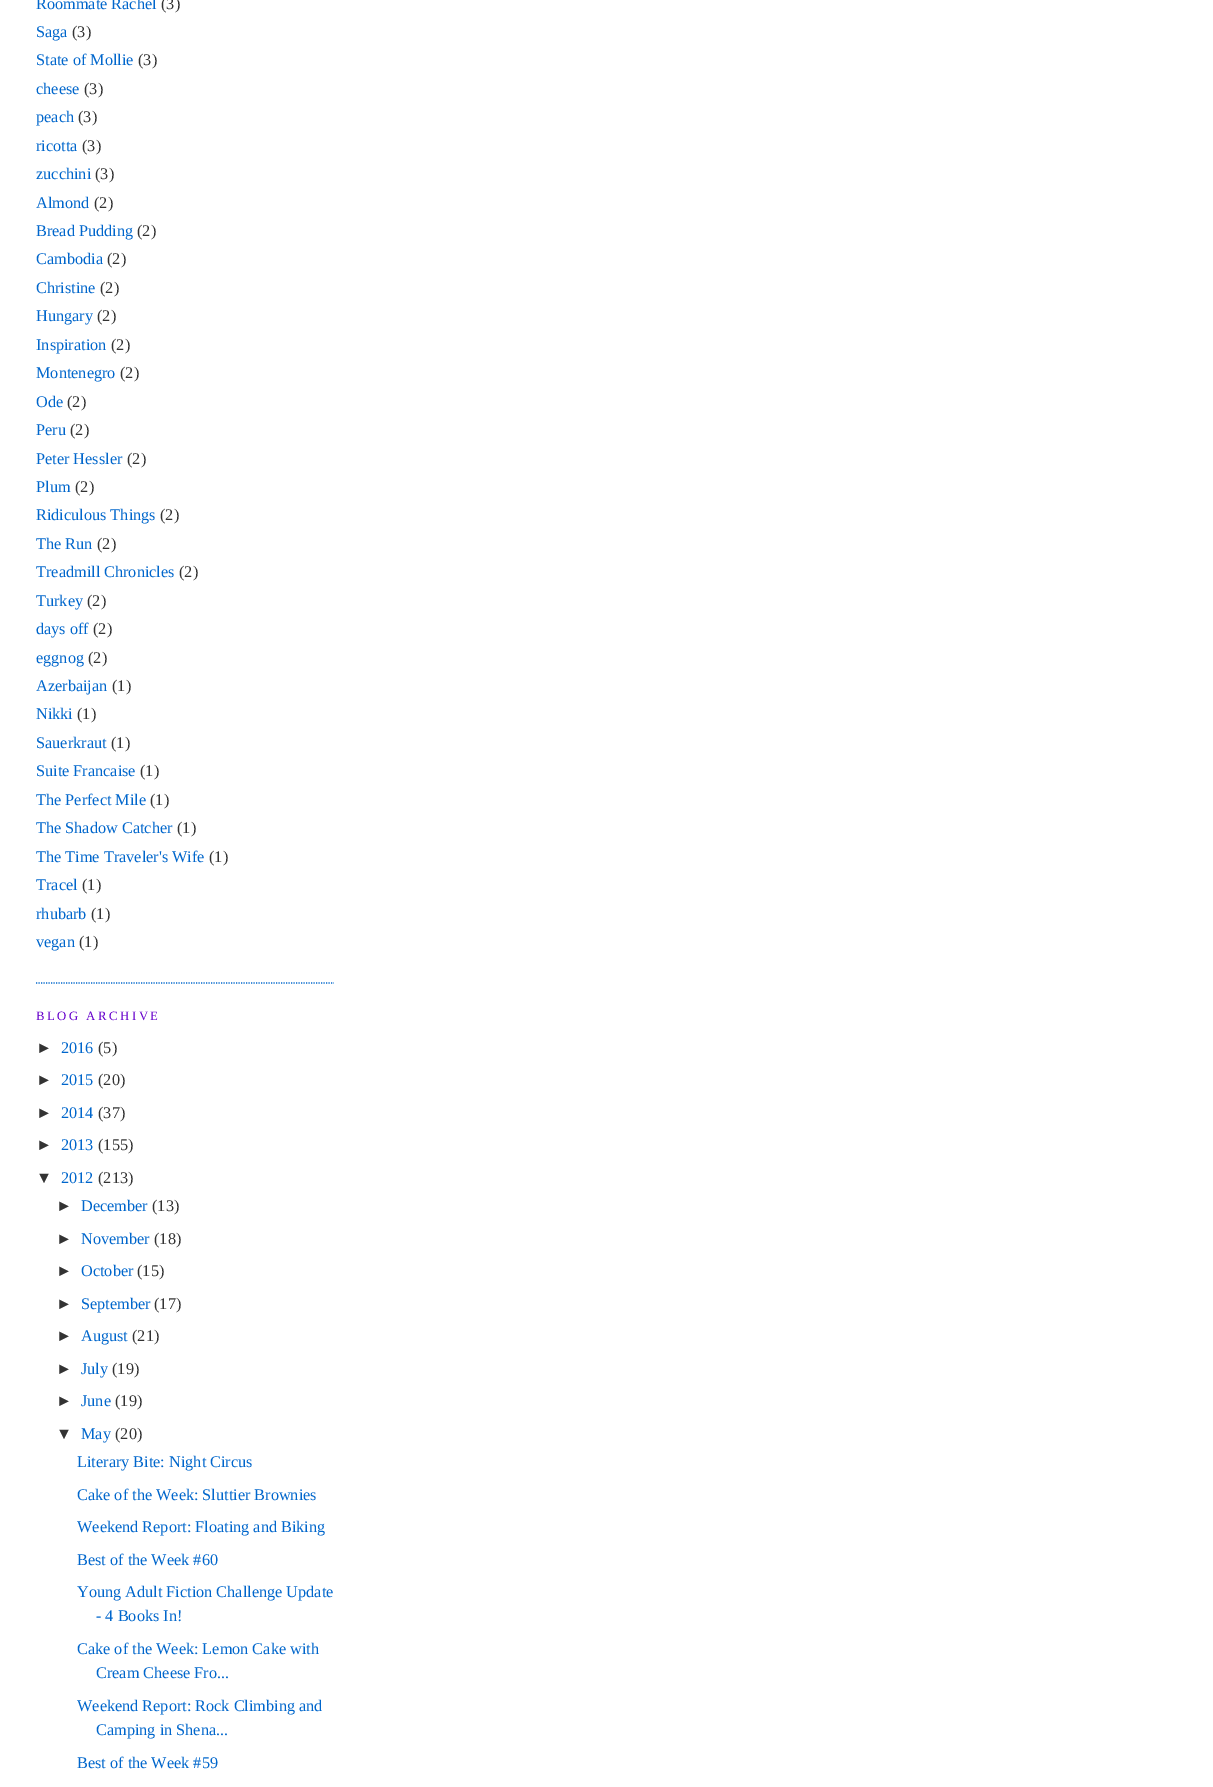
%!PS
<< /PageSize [1213 1787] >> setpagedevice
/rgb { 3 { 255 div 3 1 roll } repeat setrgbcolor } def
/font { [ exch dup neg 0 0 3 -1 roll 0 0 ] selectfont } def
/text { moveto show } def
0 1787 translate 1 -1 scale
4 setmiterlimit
255 255 255 rgb
0 0 1213 1787 rectfill
0 102 204 rgb
1.2 setlinewidth
[1.25 1.25] 0 setdash
36 983 moveto 298 0 rlineto stroke
/LiberationSerif-Regular 16.25 font
(Roommate Rachel) 36 9 text
51 51 51 rgb
(\(3\)) 161 9 text
0 102 204 rgb
(Saga) 36 37 text
51 51 51 rgb
(\(3\)) 72 37 text
0 102 204 rgb
(State of Mollie) 36 65 text
51 51 51 rgb
(\(3\)) 138 65 text
0 102 204 rgb
(cheese) 36 94 text
51 51 51 rgb
(\(3\)) 84 94 text
0 102 204 rgb
(peach) 36 122 text
51 51 51 rgb
(\(3\)) 78 122 text
0 102 204 rgb
(ricotta) 36 151 text
51 51 51 rgb
(\(3\)) 82 151 text
0 102 204 rgb
(zucchini) 36 179 text
51 51 51 rgb
(\(3\)) 95 179 text
0 102 204 rgb
(Almond) 36 208 text
51 51 51 rgb
(\(2\)) 94 208 text
0 102 204 rgb
(Bread Pudding) 36 236 text
51 51 51 rgb
(\(2\)) 137 236 text
0 102 204 rgb
(Cambodia) 36 264 text
51 51 51 rgb
(\(2\)) 107 264 text
0 102 204 rgb
(Christine) 36 293 text
51 51 51 rgb
(\(2\)) 100 293 text
0 102 204 rgb
(Hungary) 36 321 text
51 51 51 rgb
(\(2\)) 97 321 text
0 102 204 rgb
(Inspiration) 36 350 text
51 51 51 rgb
(\(2\)) 111 350 text
0 102 204 rgb
(Montenegro) 36 378 text
51 51 51 rgb
(\(2\)) 120 378 text
0 102 204 rgb
(Ode) 36 407 text
51 51 51 rgb
(\(2\)) 67 407 text
0 102 204 rgb
(Peru) 36 435 text
51 51 51 rgb
(\(2\)) 70 435 text
0 102 204 rgb
(Peter Hessler) 36 464 text
51 51 51 rgb
(\(2\)) 127 464 text
0 102 204 rgb
(Plum) 36 492 text
51 51 51 rgb
(\(2\)) 75 492 text
0 102 204 rgb
(Ridiculous Things) 36 520 text
51 51 51 rgb
(\(2\)) 160 520 text
0 102 204 rgb
(The Run) 36 549 text
51 51 51 rgb
(\(2\)) 97 549 text
0 102 204 rgb
(Treadmill Chronicles) 36 577 text
51 51 51 rgb
(\(2\)) 179 577 text
0 102 204 rgb
(Turkey) 36 606 text
51 51 51 rgb
(\(2\)) 87 606 text
0 102 204 rgb
(days off) 36 634 text
51 51 51 rgb
(\(2\)) 93 634 text
0 102 204 rgb
(eggnog) 36 663 text
51 51 51 rgb
(\(2\)) 88 663 text
0 102 204 rgb
(Azerbaijan) 36 691 text
51 51 51 rgb
(\(1\)) 112 691 text
0 102 204 rgb
(Nikki) 36 719 text
51 51 51 rgb
(\(1\)) 77 719 text
0 102 204 rgb
(Sauerkraut) 36 748 text
51 51 51 rgb
(\(1\)) 111 748 text
0 102 204 rgb
(Suite Francaise) 36 776 text
51 51 51 rgb
(\(1\)) 140 776 text
0 102 204 rgb
(The Perfect Mile) 36 805 text
51 51 51 rgb
(\(1\)) 150 805 text
0 102 204 rgb
(The Shadow Catcher) 36 833 text
51 51 51 rgb
(\(1\)) 177 833 text
0 102 204 rgb
(The Time Traveler's Wife) 36 862 text
51 51 51 rgb
(\(1\)) 209 862 text
0 102 204 rgb
(Tracel) 36 890 text
51 51 51 rgb
(\(1\)) 82 890 text
0 102 204 rgb
(rhubarb) 36 919 text
51 51 51 rgb
(\(1\)) 91 919 text
0 102 204 rgb
(vegan) 36 947 text
51 51 51 rgb
(\(1\)) 79 947 text
/LiberationSerif-Regular 12.75 font
102 0 204 rgb
36 1020 moveto 2.5 0 (BLOG ARCHIVE) ashow
/LiberationSans-Regular 16.25 font
51 51 51 rgb
(►) 36 1053 text
/LiberationSerif-Regular 16.25 font
0 102 204 rgb
(2016) 61 1053 text
51 51 51 rgb
(\(5\)) 98 1053 text
/LiberationSans-Regular 16.25 font
(►) 36 1085 text
/LiberationSerif-Regular 16.25 font
0 102 204 rgb
(2015) 61 1085 text
51 51 51 rgb
(\(20\)) 98 1085 text
/LiberationSans-Regular 16.25 font
(►) 36 1118 text
/LiberationSerif-Regular 16.25 font
0 102 204 rgb
(2014) 61 1118 text
51 51 51 rgb
(\(37\)) 98 1118 text
/LiberationSans-Regular 16.25 font
(►) 36 1150 text
/LiberationSerif-Regular 16.25 font
0 102 204 rgb
(2013) 61 1150 text
51 51 51 rgb
(\(155\)) 98 1150 text
/LiberationSans-Regular 16.25 font
(▼) 36 1183 text
/LiberationSerif-Regular 16.25 font
0 102 204 rgb
(2012) 61 1183 text
51 51 51 rgb
(\(213\)) 98 1183 text
/LiberationSans-Regular 16.25 font
(►) 56 1211 text
/LiberationSerif-Regular 16.25 font
0 102 204 rgb
(December) 81 1211 text
51 51 51 rgb
(\(13\)) 152 1211 text
/LiberationSans-Regular 16.25 font
(►) 56 1244 text
/LiberationSerif-Regular 16.25 font
0 102 204 rgb
(November) 81 1244 text
51 51 51 rgb
(\(18\)) 154 1244 text
/LiberationSans-Regular 16.25 font
(►) 56 1276 text
/LiberationSerif-Regular 16.25 font
0 102 204 rgb
(October) 81 1276 text
51 51 51 rgb
(\(15\)) 137 1276 text
/LiberationSans-Regular 16.25 font
(►) 56 1309 text
/LiberationSerif-Regular 16.25 font
0 102 204 rgb
(September) 81 1309 text
51 51 51 rgb
(\(17\)) 154 1309 text
/LiberationSans-Regular 16.25 font
(►) 56 1341 text
/LiberationSerif-Regular 16.25 font
0 102 204 rgb
(August) 81 1341 text
51 51 51 rgb
(\(21\)) 132 1341 text
/LiberationSans-Regular 16.25 font
(►) 56 1374 text
/LiberationSerif-Regular 16.25 font
0 102 204 rgb
(July) 81 1374 text
51 51 51 rgb
(\(19\)) 112 1374 text
/LiberationSans-Regular 16.25 font
(►) 56 1406 text
/LiberationSerif-Regular 16.25 font
0 102 204 rgb
(June) 81 1406 text
51 51 51 rgb
(\(19\)) 115 1406 text
/LiberationSans-Regular 16.25 font
(▼) 56 1439 text
/LiberationSerif-Regular 16.25 font
0 102 204 rgb
(May) 81 1439 text
51 51 51 rgb
(\(20\)) 115 1439 text
0 102 204 rgb
(Literary Bite: Night Circus) 77 1467 text
(Cake of the Week: Sluttier Brownies) 77 1500 text
(Weekend Report: Floating and Biking) 77 1532 text
(Best of the Week #60) 77 1565 text
(Young Adult Fiction Challenge Update) 77 1597 text
(- 4 Books In!) 96 1621 text
(Cake of the Week: Lemon Cake with) 77 1654 text
(Cream Cheese Fro...) 96 1678 text
(Weekend Report: Rock Climbing and) 77 1711 text
(Camping in Shena...) 96 1735 text
(Best of the Week #59) 77 1768 text
showpage
